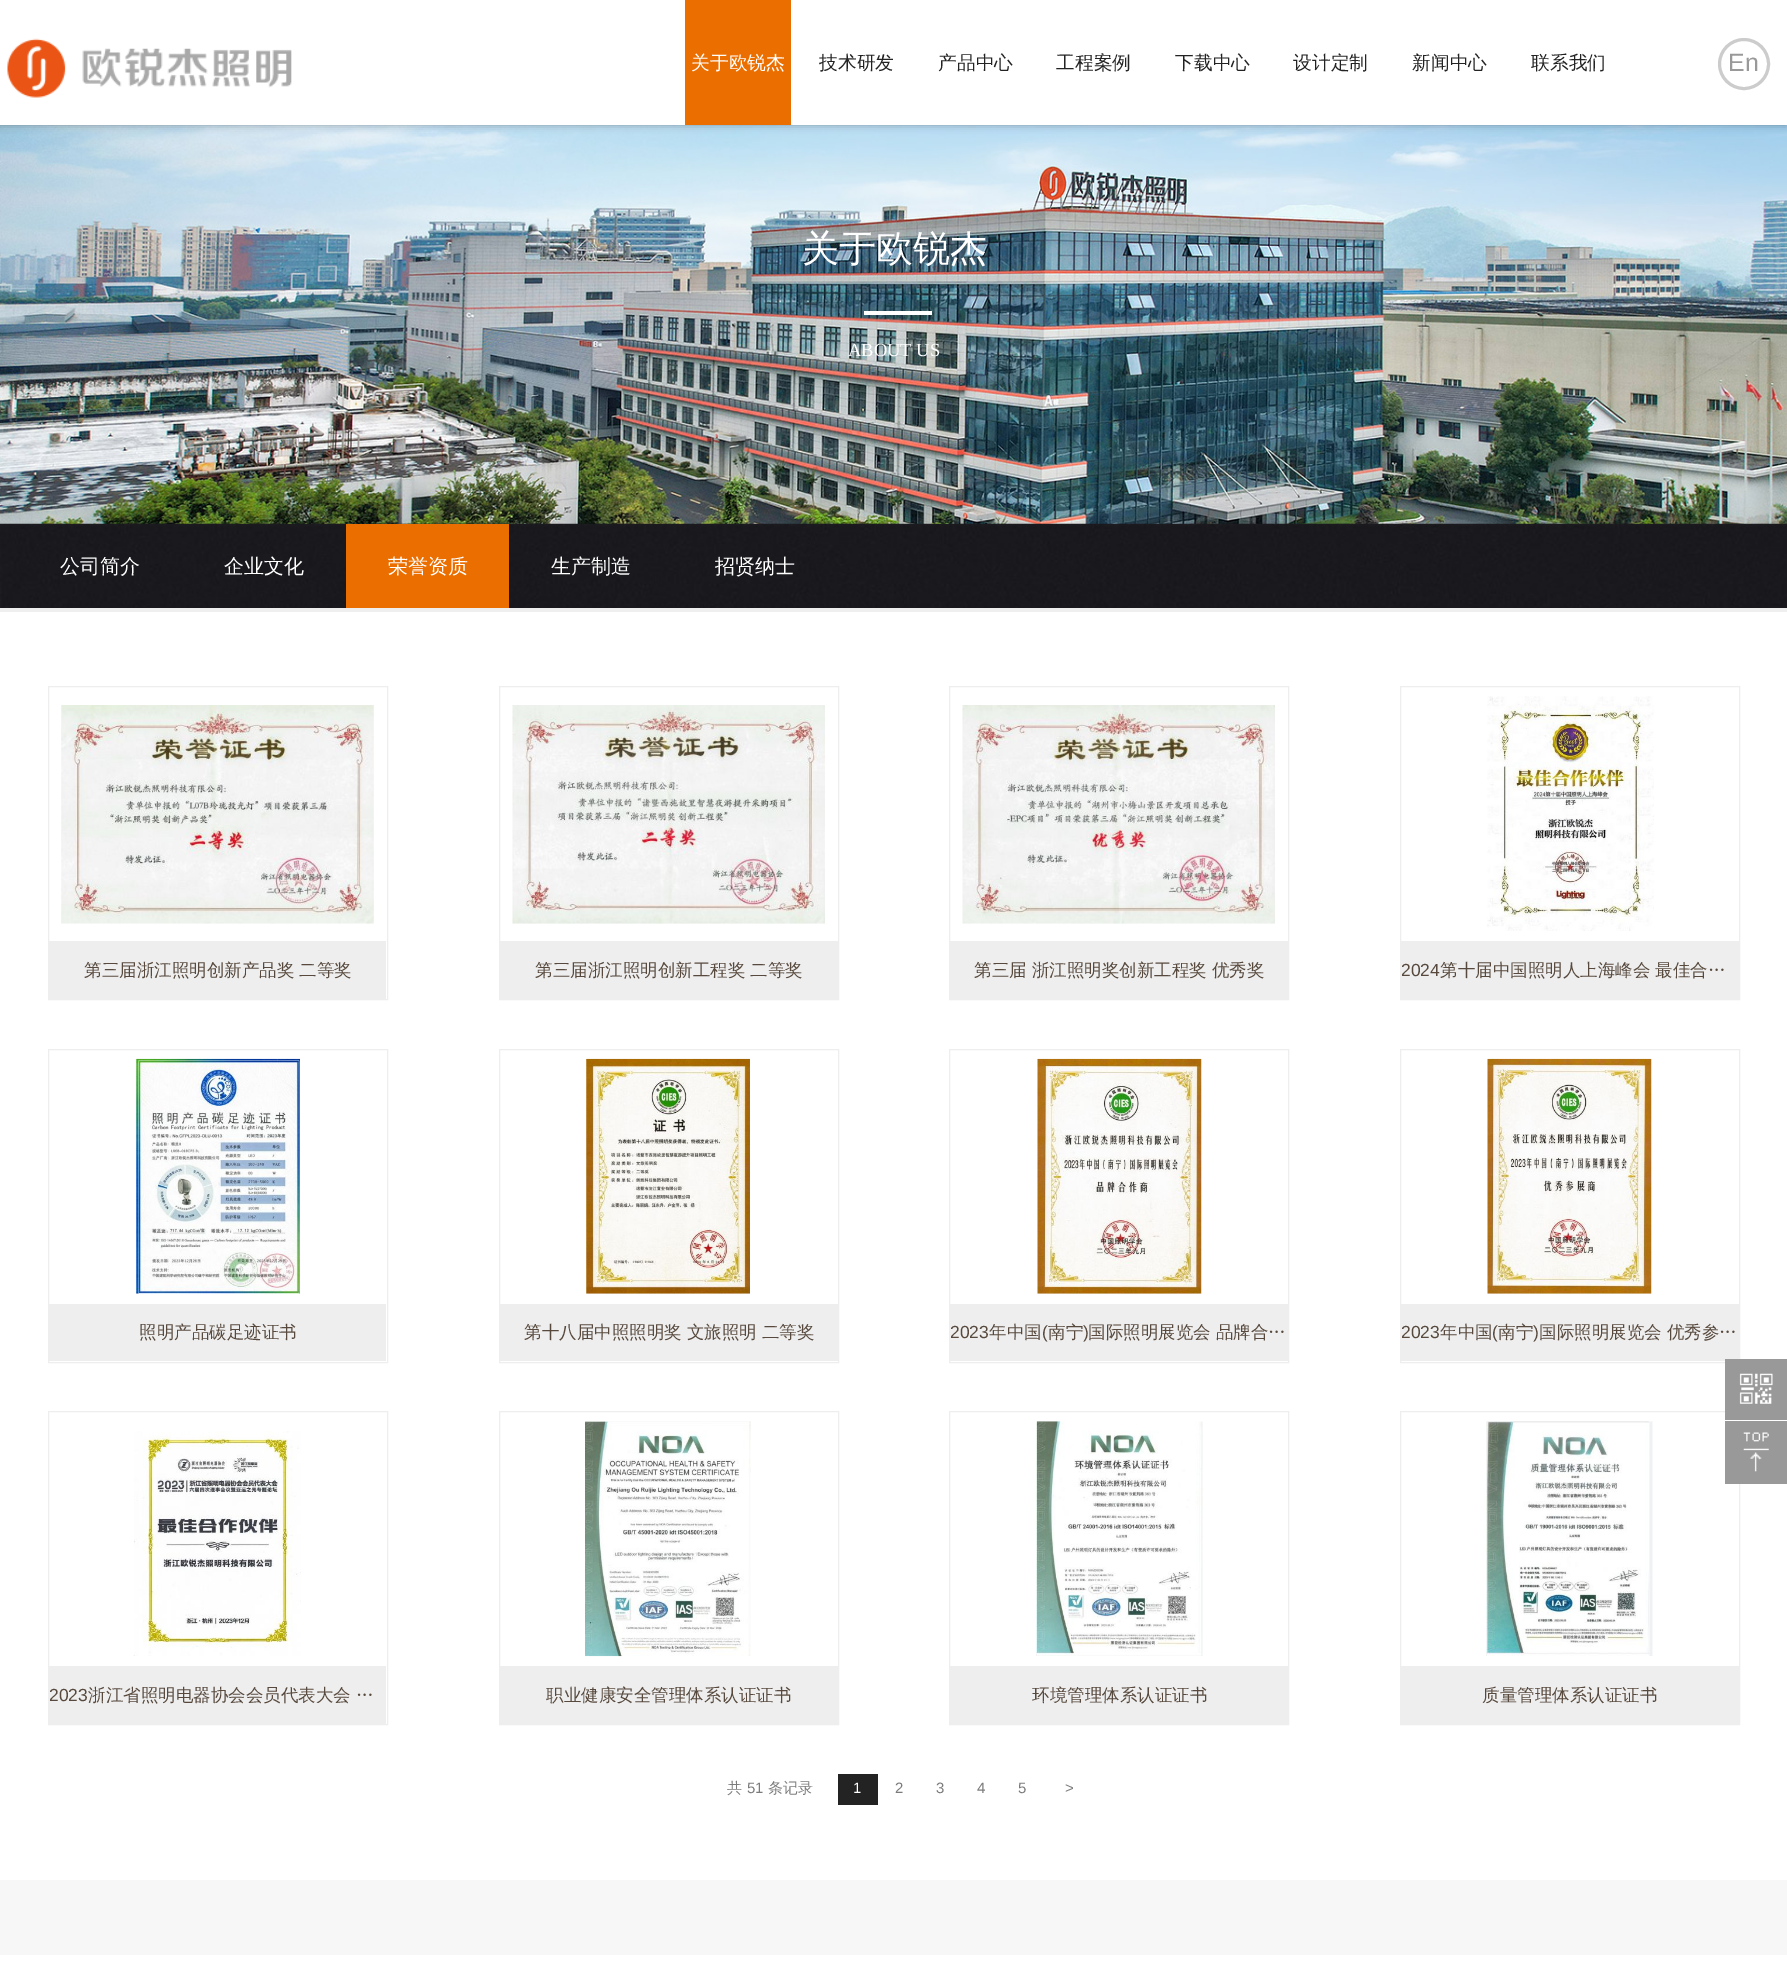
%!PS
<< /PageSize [1787 1977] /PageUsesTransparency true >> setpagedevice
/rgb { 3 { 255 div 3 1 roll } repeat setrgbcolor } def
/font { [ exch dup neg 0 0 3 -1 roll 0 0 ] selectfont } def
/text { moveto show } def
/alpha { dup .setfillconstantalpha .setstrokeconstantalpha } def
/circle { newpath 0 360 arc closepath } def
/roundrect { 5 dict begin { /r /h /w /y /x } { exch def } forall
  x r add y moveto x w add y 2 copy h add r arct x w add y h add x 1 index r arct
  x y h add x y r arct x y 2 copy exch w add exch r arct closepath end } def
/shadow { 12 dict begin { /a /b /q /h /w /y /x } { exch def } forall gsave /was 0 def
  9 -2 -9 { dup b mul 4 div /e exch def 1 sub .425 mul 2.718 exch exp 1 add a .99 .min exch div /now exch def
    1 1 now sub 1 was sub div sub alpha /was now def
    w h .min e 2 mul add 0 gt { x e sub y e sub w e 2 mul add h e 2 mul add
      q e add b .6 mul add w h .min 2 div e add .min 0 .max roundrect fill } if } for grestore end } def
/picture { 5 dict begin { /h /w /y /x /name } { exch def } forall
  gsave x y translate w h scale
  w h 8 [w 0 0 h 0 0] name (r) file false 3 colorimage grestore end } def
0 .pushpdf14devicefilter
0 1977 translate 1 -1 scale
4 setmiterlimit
255 255 255 rgb
0 0 1787 1977 rectfill
(img_02.rgb) 0 125 1787 399 picture
0 0 0 rgb
-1 0 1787 125 0 4 0.3 shadow
255 255 255 rgb
0 0 1787 125 rectfill
(img_01.rgb) 7 38 285 60 picture
235 110 0 rgb
685 0 106 125 rectfill
204 204 204 rgb
3 setlinewidth
1744 64 24.5 circle stroke
255 255 255 rgb
864 311 68 4 rectfill
(img_03.rgb) 0 523 1787 85 picture
235 110 0 rgb
346 524 163 84 rectfill
239 239 239 rgb
0 608 1787 4 rectfill
247 247 247 rgb
0 1880 1787 75 rectfill
238 238 238 rgb
1 setlinewidth
48.5 686.5 339 313 rectstroke
(img_04.rgb) 61 705 313 219 picture
49 941 337 58 rectfill
499.5 686.5 339 313 rectstroke
(img_05.rgb) 512 705 313 219 picture
500 941 338 58 rectfill
949.5 686.5 339 313 rectstroke
(img_06.rgb) 962 705 313 219 picture
950 941 338 58 rectfill
1400.5 686.5 339 313 rectstroke
(img_07.rgb) 1487 696 167 235 picture
1401 941 338 58 rectfill
48.5 1049.5 339 313 rectstroke
(img_08.rgb) 136 1058 164 236 picture
49 1304 337 57 rectfill
499.5 1049.5 339 313 rectstroke
(img_09.rgb) 586 1058 164 236 picture
500 1304 338 57 rectfill
949.5 1049.5 339 313 rectstroke
(img_10.rgb) 1037 1058 165 236 picture
950 1304 338 57 rectfill
1400.5 1049.5 339 313 rectstroke
(img_11.rgb) 1487 1058 165 236 picture
1401 1304 338 57 rectfill
48.5 1411.5 339 313 rectstroke
(img_12.rgb) 133 1431 168 225 picture
49 1666 337 58 rectfill
499.5 1411.5 339 313 rectstroke
(img_13.rgb) 585 1421 166 236 picture
500 1666 338 58 rectfill
949.5 1411.5 339 313 rectstroke
(img_14.rgb) 1036 1421 167 235 picture
950 1666 338 58 rectfill
1400.5 1411.5 339 313 rectstroke
(img_15.rgb) 1486 1421 167 235 picture
1401 1666 338 58 rectfill
35 35 35 rgb
838 1774 40 31 rectfill
153 153 153 rgb
1725 1359 62 61 rectfill
(img_16.rgb) 1739 1373 34 31 picture
255 255 255 rgb
1739 1420 1 1 rectfill
153 153 153 rgb
1725 1421 62 63 rectfill
(img_17.rgb) 1743 1432 26 40 picture
/WenQuanYiZenHei-Medium 18.75 font
255 255 255 rgb
(关于欧锐杰) 691 69 text
35 35 35 rgb
(技术研发) 819 69 text
(产品中心) 938 69 text
(工程案例) 1056 69 text
(下载中心) 1175 69 text
(设计定制) 1293 69 text
(新闻中心) 1412 69 text
(联系我们) 1531 69 text
/LiberationSans-Regular 25 font
153 153 153 rgb
(En) 1728 71 text
/WenQuanYiZenHei-Medium 37 font
255 255 255 rgb
(关于欧锐杰) 802 261 text
/LiberationSerif-Regular 18.5 font
(ABOUT US) 848 356 text
/WenQuanYiZenHei-Medium 20 font
(公司简介) 60 573 text
(企业文化) 224 573 text
(荣誉资质) 388 573 text
(生产制造) 551 573 text
(招贤纳士) 715 573 text
/WenQuanYiZenHei-Medium 17.5 font
87 73 61 rgb
(第三届浙江照明创新产品奖 二等奖) 84 976 text
(第三届浙江照明创新工程奖 二等奖) 535 976 text
(第三届 浙江照明奖创新工程奖 优秀奖) 974 976 text
/LiberationSans-Regular 17.5 font
(2024) 1401 976 text
/WenQuanYiZenHei-Medium 17.5 font
(第十届中国照明人上海峰会 最佳合…) 1440 976 text
(照明产品碳足迹证书) 139 1338 text
(第十八届中照照明奖 文旅照明 二等奖) 524 1338 text
/LiberationSans-Regular 17.5 font
(2023) 950 1338 text
/WenQuanYiZenHei-Medium 17.5 font
(年中国) 989 1338 text
/LiberationSans-Regular 17.5 font
(\() 1042 1338 text
/WenQuanYiZenHei-Medium 17.5 font
(南宁) 1048 1338 text
/LiberationSans-Regular 17.5 font
(\)) 1083 1338 text
/WenQuanYiZenHei-Medium 17.5 font
(国际照明展览会 品牌合…) 1088 1338 text
/LiberationSans-Regular 17.5 font
(2023) 1401 1338 text
/WenQuanYiZenHei-Medium 17.5 font
(年中国) 1440 1338 text
/LiberationSans-Regular 17.5 font
(\() 1492 1338 text
/WenQuanYiZenHei-Medium 17.5 font
(南宁) 1498 1338 text
/LiberationSans-Regular 17.5 font
(\)) 1533 1338 text
/WenQuanYiZenHei-Medium 17.5 font
(国际照明展览会 优秀参…) 1539 1338 text
/LiberationSans-Regular 17.5 font
(2023) 49 1701 text
/WenQuanYiZenHei-Medium 17.5 font
(浙江省照明电器协会会员代表大会 …) 88 1701 text
(职业健康安全管理体系认证证书) 546 1701 text
(环境管理体系认证证书) 1032 1701 text
(质量管理体系认证证书) 1482 1701 text
/WenQuanYiZenHei-Medium 15 font
123 123 123 rgb
(共) 727 1793 text
/LiberationSans-Regular 15 font
(51) 747 1793 text
/WenQuanYiZenHei-Medium 15 font
(条记录) 768 1793 text
/LiberationSans-Regular 15 font
255 255 255 rgb
(1) 853 1793 text
123 123 123 rgb
(2) 895 1793 text
(3) 936 1793 text
(4) 977 1793 text
(5) 1018 1793 text
(>) 1065 1793 text
.poppdf14devicefilter showpage
